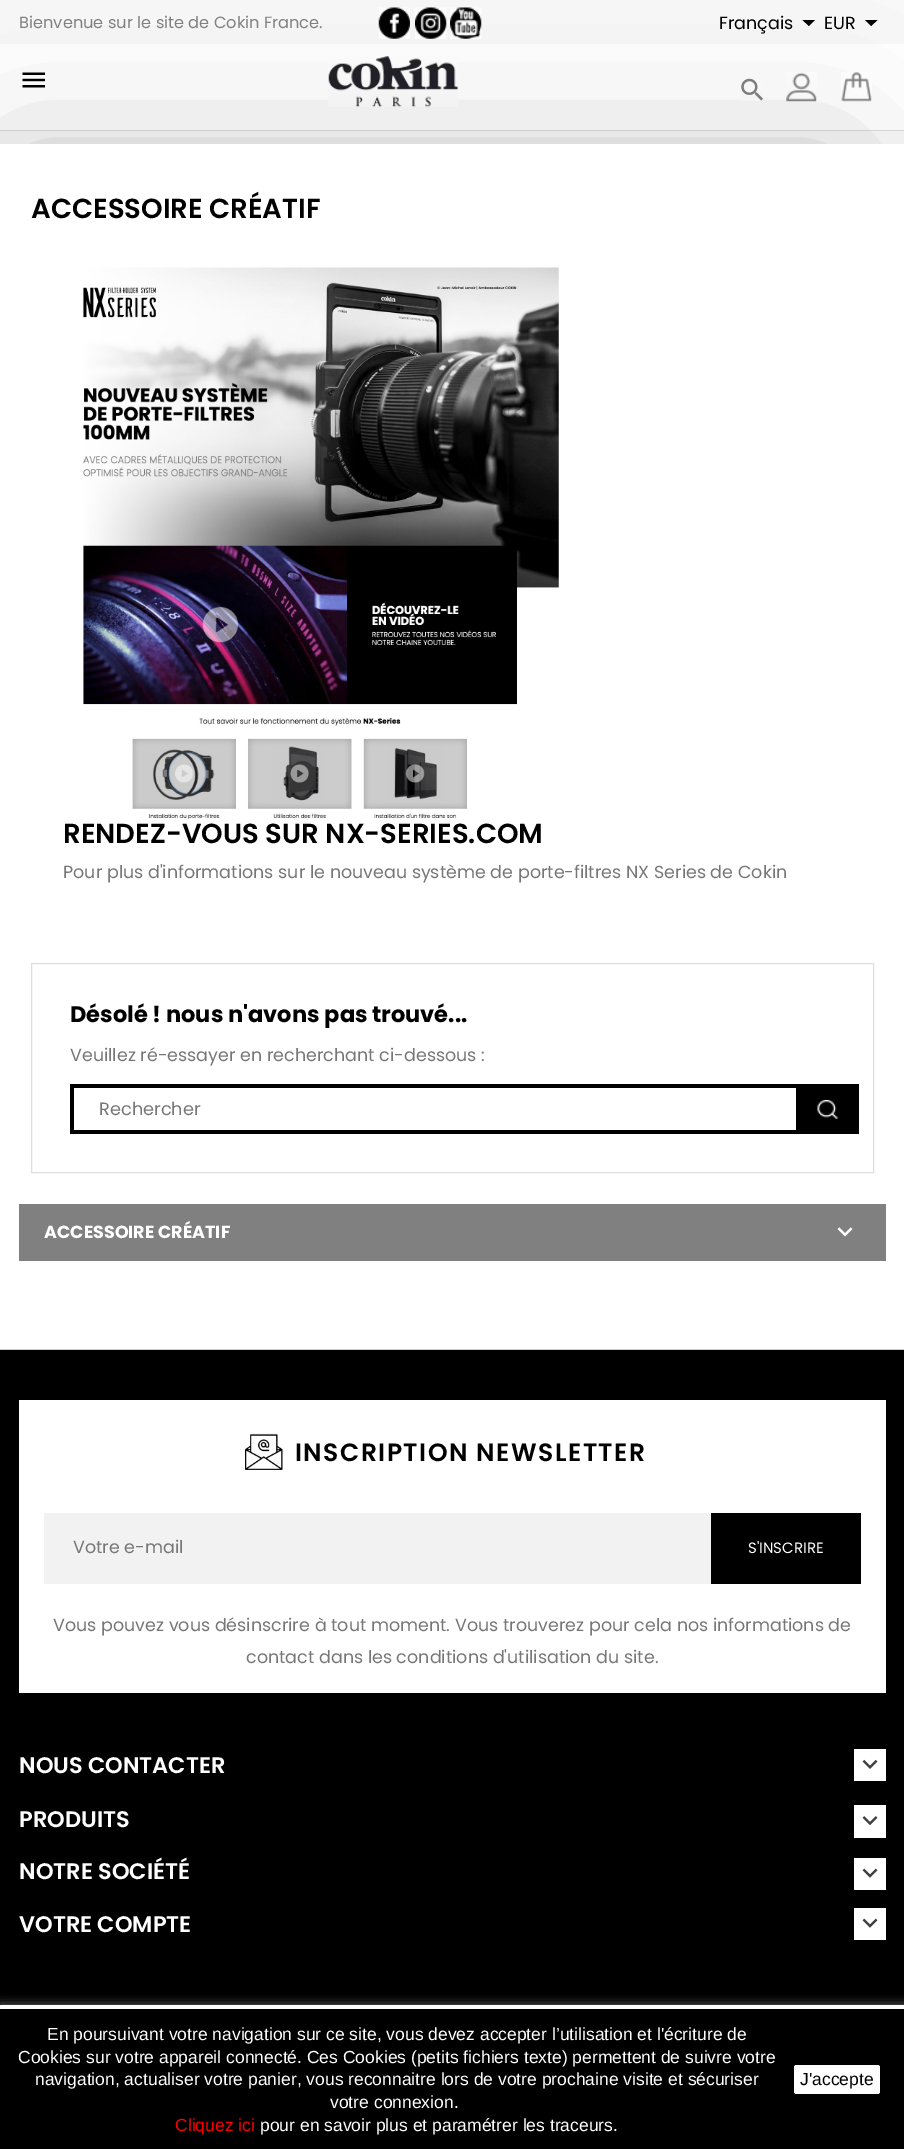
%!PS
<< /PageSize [904 2149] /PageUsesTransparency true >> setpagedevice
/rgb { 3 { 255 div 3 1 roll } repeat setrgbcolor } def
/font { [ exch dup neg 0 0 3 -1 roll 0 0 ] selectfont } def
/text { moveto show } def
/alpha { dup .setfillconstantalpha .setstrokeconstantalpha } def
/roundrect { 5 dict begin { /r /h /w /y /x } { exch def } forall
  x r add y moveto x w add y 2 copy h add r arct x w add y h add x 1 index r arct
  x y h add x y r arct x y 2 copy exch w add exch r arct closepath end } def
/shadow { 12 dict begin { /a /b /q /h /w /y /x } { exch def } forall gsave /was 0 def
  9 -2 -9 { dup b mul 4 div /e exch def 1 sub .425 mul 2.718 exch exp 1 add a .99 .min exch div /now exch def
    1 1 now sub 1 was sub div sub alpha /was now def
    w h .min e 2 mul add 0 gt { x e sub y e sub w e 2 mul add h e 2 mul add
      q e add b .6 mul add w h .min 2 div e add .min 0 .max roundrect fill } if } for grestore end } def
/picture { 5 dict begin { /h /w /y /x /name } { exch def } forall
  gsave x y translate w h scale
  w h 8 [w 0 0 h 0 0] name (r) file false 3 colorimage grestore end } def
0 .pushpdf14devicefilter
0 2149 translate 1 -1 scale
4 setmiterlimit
248 248 248 rgb
0 0 904 2149 rectfill
255 255 255 rgb
0 44 904 86 rectfill
221 218 218 rgb
0 130 904 1 rectfill
0 0 0 rgb
13 156 830 1130 0 75 0.2 shadow
(img_01.rgb) 378 7 32 32 picture
(img_02.rgb) 415 7 32 32 picture
(img_03.rgb) 450 7 32 32 picture
802.5 20 moveto 12.5 0 rlineto -6 6 rlineto closepath fill
865 20 moveto 12.5 0 rlineto -6.5 6 rlineto closepath fill
(img_04.rgb) 22 72 23 16 picture
(img_05.rgb) 328 56 130 51 picture
(img_06.rgb) 741 78 22 23 picture
(img_07.rgb) 786 72 31 30 picture
(img_08.rgb) 841 72 31 30 picture
255 255 255 rgb
0 144 904 1205 rectfill
(img_09.rgb) 83 267 476 552 picture
221 221 221 rgb
31.5 963.5 842 209 rectstroke
0 0 0 rgb
70 1084 moveto 728 0 rlineto -2 4 rlineto -722 0 rlineto closepath fill
798 1134 moveto -728 0 rlineto 4 -4 rlineto 722 0 rlineto closepath fill
70 1084 4 50 rectfill
796 1084 63 50 rectfill
(img_10.rgb) 817 1100 21 19 picture
128 128 128 rgb
19 1204 867 57 rectfill
(img_11.rgb) 837 1227 16 10 picture
0 0 0 rgb
0 1350 904 655 rectfill
204 204 204 rgb
0 1349 904 1 rectfill
255 255 255 rgb
19 1400 867 293 rectfill
(img_12.rgb) 245 1433 38 37 picture
242 242 242 rgb
44 1513 667 71 rectfill
0 0 0 rgb
711 1513 150 71 rectfill
255 255 255 rgb
854 1749 32 32 rectfill
(img_13.rgb) 862 1759 16 10 picture
0 0 0 rgb
0 2005 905 109 0 56 0.2 shadow
255 255 255 rgb
854 1805 32 33 rectfill
(img_14.rgb) 862 1816 16 10 picture
854 1858 32 32 rectfill
(img_15.rgb) 862 1868 16 10 picture
854 1908 32 32 rectfill
(img_15.rgb) 862 1918 16 10 picture
0 2005 904 4 rectfill
0 2009 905 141 0 6 1 shadow
0 0 0 rgb
0 2009 904 140 rectfill
255 255 255 rgb
794 2065 86 29 2.5 roundrect fill
/Poppins-Regular 16.25 font
128 128 128 rgb
(Bienvenue sur le site de Cokin France.) 19 28 text
/Poppins-Regular 17.5 font
0 0 0 rgb
(Français) 719 29 text
(EUR) 824 29 text
/Poppins-SemiBold 27.5 font
(ACCESSOIRE CRÉATIF) 31 218 text
(RENDEZ-VOUS SUR NX-SERIES.COM) 63 843 text
/Poppins-Regular 17.5 font
119 119 119 rgb
(Pour plus d'informations sur le nouveau système de porte-filtres NX Series de Cokin) 63 878 text
/Poppins-Bold 22.5 font
0 0 0 rgb
(Désolé ! nous n'avons pas trouvé...) 70 1022 text
/Poppins-Regular 17.5 font
119 119 119 rgb
(Veuillez ré-essayer en recherchant ci-dessous :) 70 1061 text
/Poppins-Regular 17.75 font
(Rechercher) 99 1115 text
/Poppins-Bold 17.5 font
255 255 255 rgb
(ACCESSOIRE CRÉATIF) 44 1238 text
/Poppins-SemiBold 25 font
0 0 0 rgb
295 1461 moveto 1.5 0 (INSCRIPTION NEWSLETTER) ashow
/Poppins-Regular 17.5 font
119 119 119 rgb
(Votre e-mail) 73 1553 text
/Poppins-Regular 15 font
255 255 255 rgb
(S'INSCRIRE) 748 1553 text
/Poppins-Regular 17.5 font
119 119 119 rgb
(Vous pouvez vous désinscrire à tout moment. Vous trouverez pour cela nos informations de) 53 1631 text
(contact dans les conditions d'utilisation du site.) 246 1663 text
/Poppins-SemiBold 22.5 font
255 255 255 rgb
(NOUS CONTACTER) 19 1773 text
(PRODUITS) 19 1827 text
(NOTRE SOCIÉTÉ) 19 1879 text
(VOTRE COMPTE) 19 1932 text
/LiberationSans-Regular 17.5 font
(En poursuivant votre navigation sur ce site, vous devez accepter l’utilisation et l'écriture de) 47 2040 text
(Cookies sur votre appareil connecté. Ces Cookies \(petits fichiers texte\) permettent de suivre votre) 18 2063 text
(navigation, actualiser votre panier, vous reconnaitre lors de votre prochaine visite et sécuriser) 35 2085 text
(votre connexion.) 330 2108 text
248 3 3 rgb
(Cliquez ici) 175 2131 text
255 255 255 rgb
(pour en savoir plus et paramétrer les traceurs.) 260 2131 text
0 0 0 rgb
(J'accepte) 800 2085 text
.poppdf14devicefilter showpage
